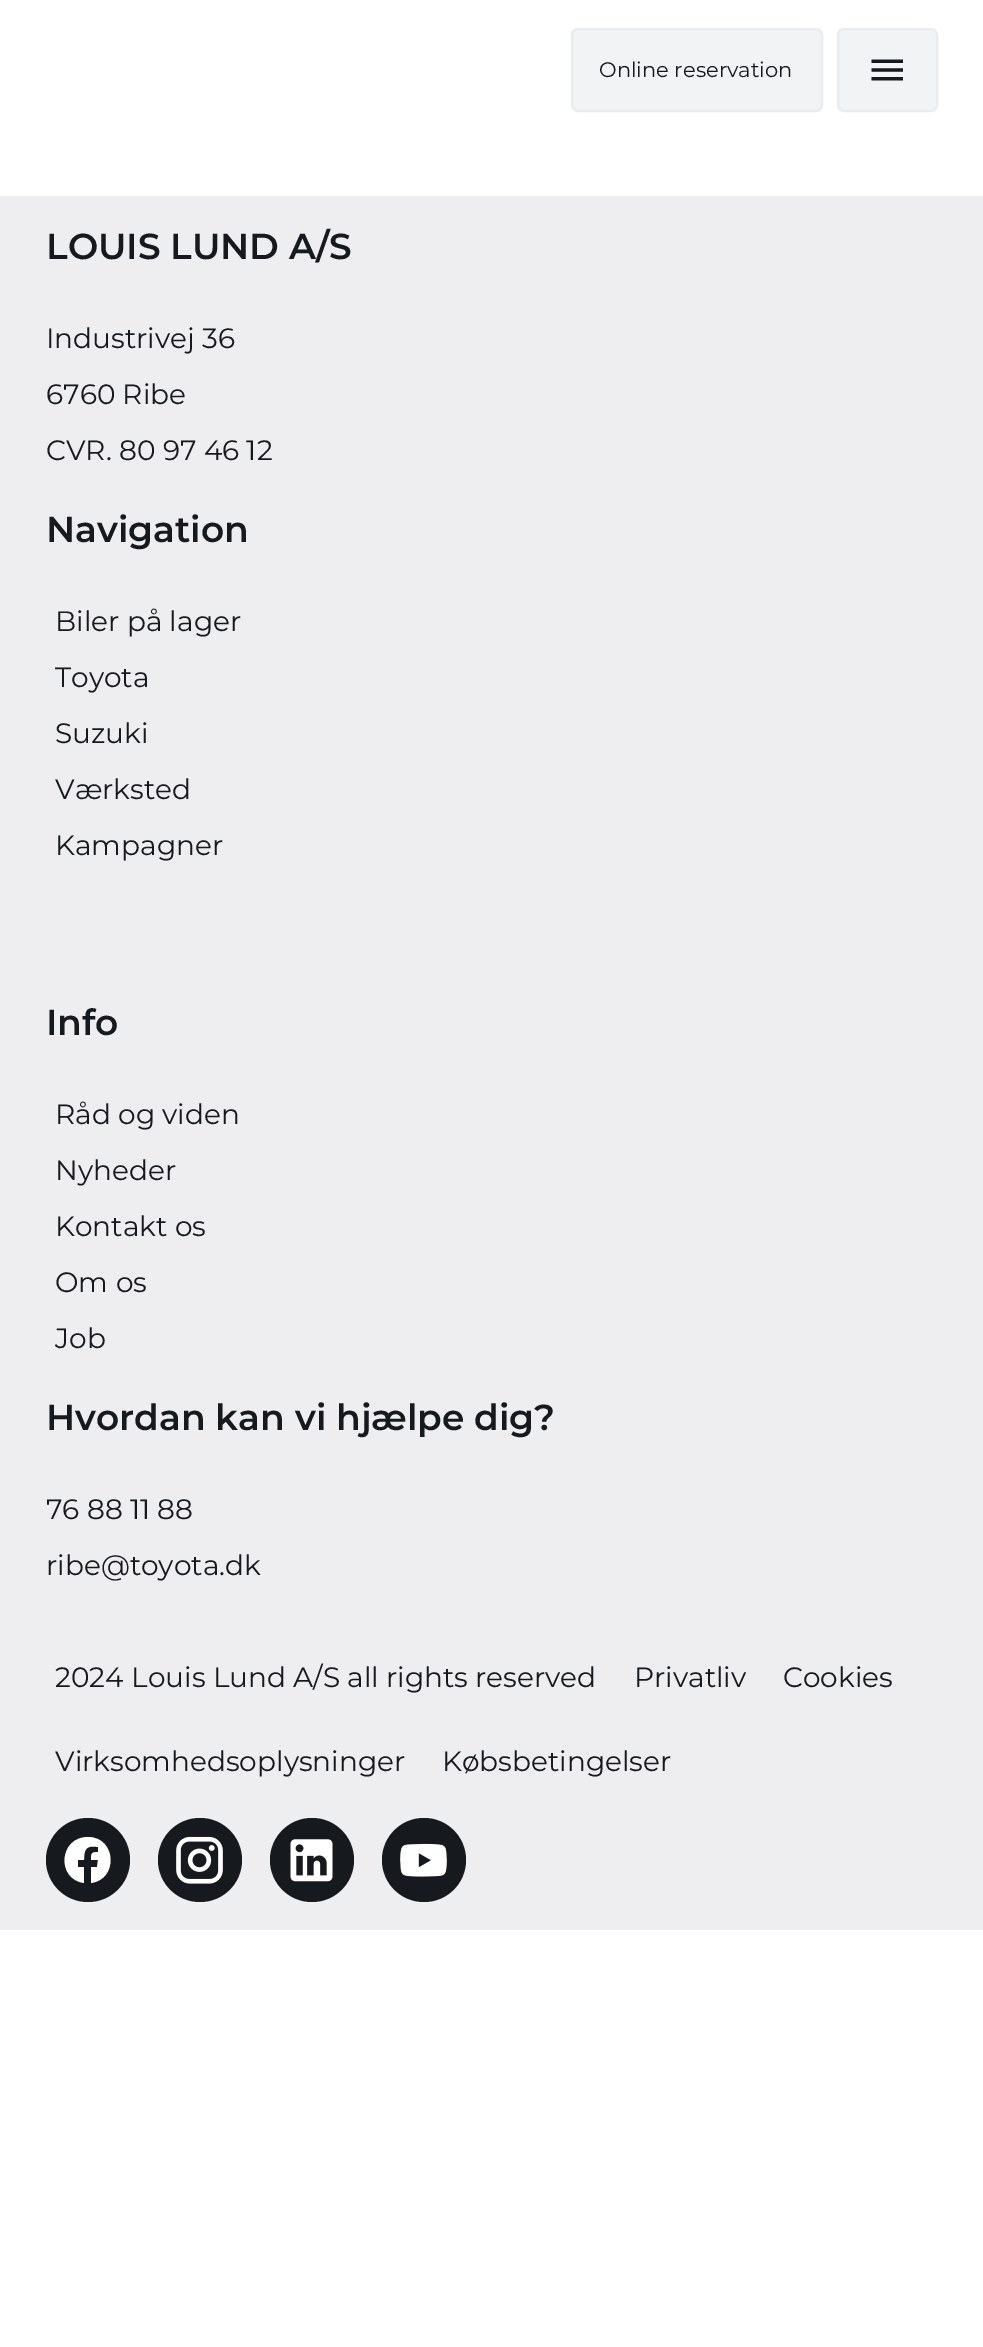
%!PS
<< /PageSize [983 2347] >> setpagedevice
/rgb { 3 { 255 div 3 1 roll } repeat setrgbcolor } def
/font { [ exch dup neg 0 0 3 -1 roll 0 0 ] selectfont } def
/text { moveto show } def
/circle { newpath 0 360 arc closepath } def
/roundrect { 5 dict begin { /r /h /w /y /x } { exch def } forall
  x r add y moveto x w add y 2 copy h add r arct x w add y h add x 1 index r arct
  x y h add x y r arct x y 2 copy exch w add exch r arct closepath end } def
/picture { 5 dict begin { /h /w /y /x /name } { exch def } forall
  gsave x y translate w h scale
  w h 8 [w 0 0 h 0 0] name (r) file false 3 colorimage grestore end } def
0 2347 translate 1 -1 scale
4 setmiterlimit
255 255 255 rgb
0 0 983 2347 rectfill
241 243 245 rgb
572 29 250 82 6 roundrect gsave fill grestore
233 236 239 rgb
2 setlinewidth
stroke
241 243 245 rgb
838 29 99 82 6 roundrect gsave fill grestore
233 236 239 rgb
stroke
(img_01.rgb) 871 59 32 22 picture
238 238 240 rgb
0 196 983 1734 rectfill
22 25 29 rgb
88 1860 42 circle fill
255 255 255 rgb
88 1837 moveto -29 0 -32 42 -4 46 rcurveto 0 -16 rlineto -6 0 rlineto 0 -7 rlineto 6 0 rlineto 0 -11 2 -15 14 -13 rcurveto 0 5 rlineto -7 0 -7 2 -7 8 rcurveto 7 0 rlineto -1 7 rlineto -6 0 rlineto 0 16 rlineto 28 -4 25 -46 -3 -46 rcurveto closepath fill
22 25 29 rgb
200 1860 42 circle fill
(img_02.rgb) 176 1836 47 48 picture
312 1860 42 circle fill
(img_03.rgb) 290 1839 43 43 picture
424 1860 42 circle fill
(img_04.rgb) 400 1843 47 34 picture
/Montserrat-Regular 21 font
(Online reservation) 599 77 text
/Montserrat-SemiBold 36 font
(LOUIS LUND A/S) 46 259 text
/Montserrat-Regular 28 font
(Industrivej 36) 46 348 text
(6760 Ribe) 46 404 text
(CVR. 80 97 46 12) 46 460 text
/Montserrat-SemiBold 36 font
(Navigation) 46 542 text
/Montserrat-Regular 28 font
(Biler på lager) 55 631 text
(Toyota) 55 687 text
(Suzuki) 55 743 text
(Værksted) 55 799 text
(Kampagner) 55 855 text
/Montserrat-SemiBold 36 font
(Info) 46 1035 text
/Montserrat-Regular 28 font
(Råd og viden) 55 1124 text
(Nyheder) 55 1180 text
(Kontakt os) 55 1236 text
(Om os) 55 1292 text
(Job) 55 1348 text
/Montserrat-SemiBold 36 font
(Hvordan kan vi hjælpe dig?) 46 1430 text
/Montserrat-Regular 28 font
(76 88 11 88) 46 1519 text
(ribe@toyota.dk) 46 1575 text
(2024 Louis Lund A/S all rights reserved) 55 1687 text
(Privatliv) 634 1687 text
(Cookies) 783 1687 text
(Virksomhedsoplysninger) 55 1771 text
(Købsbetingelser) 442 1771 text
showpage
